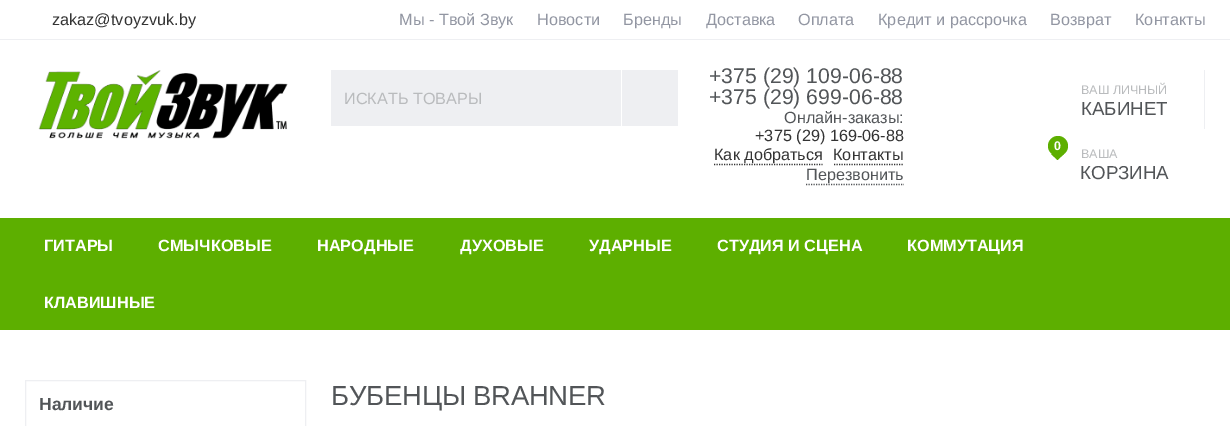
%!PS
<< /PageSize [1230 426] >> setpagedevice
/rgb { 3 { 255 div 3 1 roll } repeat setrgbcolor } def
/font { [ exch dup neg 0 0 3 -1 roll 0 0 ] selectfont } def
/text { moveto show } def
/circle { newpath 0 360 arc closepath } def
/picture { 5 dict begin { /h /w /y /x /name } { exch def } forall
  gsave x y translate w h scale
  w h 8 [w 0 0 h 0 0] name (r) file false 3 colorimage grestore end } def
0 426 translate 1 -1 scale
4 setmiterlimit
255 255 255 rgb
0 0 1230 426 rectfill
238 239 242 rgb
0 39 1230 1 rectfill
(img_01.rgb) 38 70 250 69 picture
331 70 290 56 rectfill
622 70 56 56 rectfill
51 51 51 rgb
1.2 setlinewidth
[1.25 1.25] 0 setdash
714 164.5 moveto 108.5 0 rlineto stroke
834 164.5 moveto 70 0 rlineto stroke
82 85 88 rgb
806 184.5 moveto 98 0 rlineto stroke
238 239 242 rgb
1204 70 1 59 rectfill
93 175 0 rgb
1058 146 10 circle fill
1051 154 moveto 13 0 rlineto -6.5 6 rlineto closepath fill
0 218 1230 112 rectfill
238 239 242 rgb
1 setlinewidth
[] 0 setdash
25.5 380.5 280 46 rectstroke
/LiberationSans-Regular 16.25 font
51 51 51 rgb
(zakaz@tvoyzvuk.by) 52 25 text
146 150 162 rgb
(Мы - Твой Звук) 399 25 text
(Новости) 537 25 text
(Бренды) 623 25 text
(Доставка) 706 25 text
(Оплата) 798 25 text
(Кредит и рассрочка) 878 25 text
(Возврат) 1050 25 text
(Контакты) 1135 25 text
185 187 189 rgb
(ИСКАТЬ ТОВАРЫ) 344 104 text
/LiberationSans-Regular 21.25 font
82 85 88 rgb
(+375 \(29\) 109-06-88) 709 83 text
(+375 \(29\) 699-06-88) 709 104 text
/LiberationSans-Regular 16.25 font
(Онлайн-заказы:) 784 123 text
51 51 51 rgb
(+375 \(29\) 169-06-88) 755 141 text
(Как добраться) 714 160 text
(Контакты) 833 160 text
82 85 88 rgb
(Перезвонить) 806 180 text
/LiberationSans-Regular 12.5 font
185 187 189 rgb
(ВАШ ЛИЧНЫЙ) 1081 94 text
/LiberationSans-Regular 18.75 font
82 85 88 rgb
(КАБИНЕТ) 1081 115 text
/LiberationSans-Bold 12.5 font
255 255 255 rgb
(0) 1054 150 text
/LiberationSans-Regular 12.5 font
185 187 189 rgb
(ВАША) 1081 158 text
/LiberationSans-Regular 18.75 font
82 85 88 rgb
(КОРЗИНА) 1080 179 text
/LiberationSans-Bold 16.25 font
255 255 255 rgb
(ГИТАРЫ) 44 251 text
(СМЫЧКОВЫЕ) 158 251 text
(НАРОДНЫЕ) 317 251 text
(ДУХОВЫЕ) 460 251 text
(УДАРНЫЕ) 589 251 text
(СТУДИЯ И СЦЕНА) 717 251 text
(КОММУТАЦИЯ) 907 251 text
(КЛАВИШНЫЕ) 44 308 text
/LiberationSans-Bold 17.5 font
82 85 88 rgb
(Наличие) 39 410 text
/LiberationSans-Regular 27.5 font
331 405 moveto -0.25 0 (БУБЕНЦЫ BRAHNER) ashow
showpage
